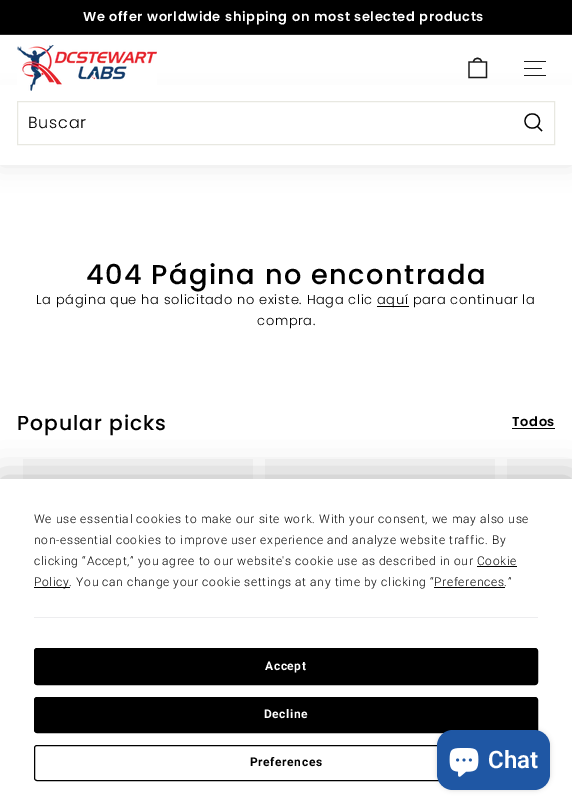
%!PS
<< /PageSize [572 811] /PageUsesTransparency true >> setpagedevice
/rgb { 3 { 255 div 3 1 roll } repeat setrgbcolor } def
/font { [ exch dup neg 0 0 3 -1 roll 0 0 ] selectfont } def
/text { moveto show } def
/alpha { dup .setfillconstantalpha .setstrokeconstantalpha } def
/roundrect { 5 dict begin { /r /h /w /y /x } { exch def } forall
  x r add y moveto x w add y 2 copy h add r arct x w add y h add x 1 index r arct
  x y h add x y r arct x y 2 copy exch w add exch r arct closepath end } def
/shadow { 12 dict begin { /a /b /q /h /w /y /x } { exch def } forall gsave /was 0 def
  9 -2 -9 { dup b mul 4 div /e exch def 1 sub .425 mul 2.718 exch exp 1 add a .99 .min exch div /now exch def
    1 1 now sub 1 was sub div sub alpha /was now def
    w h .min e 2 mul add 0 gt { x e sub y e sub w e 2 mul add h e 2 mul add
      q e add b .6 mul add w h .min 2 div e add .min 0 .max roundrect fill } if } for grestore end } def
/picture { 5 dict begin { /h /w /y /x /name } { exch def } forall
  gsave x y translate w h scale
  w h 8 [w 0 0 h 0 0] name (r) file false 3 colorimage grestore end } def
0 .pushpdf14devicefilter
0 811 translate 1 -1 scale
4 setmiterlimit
255 255 255 rgb
0 0 572 811 rectfill
247 247 247 rgb
507 459 65 20 rectfill
265 459 230 20 rectfill
23 459 230 20 rectfill
0 0 0 rgb
0 0 572 34 rectfill
38 38 38 rgb
0 34 572 1 rectfill
0 0 0 rgb
0 101 572 64 0 12.5 0.1 shadow
255 255 255 rgb
0 85 572 80 rectfill
(img_01.rgb) 17 45 140 46 picture
26 26 26 rgb
1.3 setlinewidth
473.5 62 moveto 0 -5 8 -5 8 0 rcurveto 469 62 moveto 17.5 0 rlineto 0 15.5 rlineto -17.5 0 rlineto closepath stroke
524 61 22 1 rectfill
524 68 18 1 rectfill
524 75 22 1 rectfill
232 232 225 rgb
1 setlinewidth
17.5 101.5 537 43 rectstroke
0 0 0 rgb
1.2 setlinewidth
539.5 121 moveto 0 9.5 -14.5 9.5 -14.5 0 rcurveto 0 -9.5 14.5 -9.5 14.5 0 rcurveto closepath 542 131 moveto -4.5 -4.5 rlineto stroke
377 306 32 1 rectfill
512 428 43 1 rectfill
0 479 572 332 0 17.5 0.25 shadow
255 255 255 rgb
0 479 572 332 rectfill
0 0 0 rgb
477 566 40 1 rectfill
34 587 36 1 rectfill
434 587 71 1 rectfill
237 237 239 rgb
34 617 504 1 rectfill
0 0 0 rgb
34.5 648.5 503 36 2.5 roundrect gsave fill grestore
1 setlinewidth
stroke
34.5 697.5 503 35 2.5 roundrect gsave fill grestore
stroke
34.5 745.5 503 35 2.5 roundrect stroke
437 730 113 60 16 2.5 0.15 shadow
31 87 164 rgb
437 730 113 60 16 roundrect fill
(img_02.rgb) 449 748 30 29 picture
/Poppins-SemiBold 13 font
255 255 255 rgb
83 21 moveto 0.65 0 (We offer worldwide shipping on most selected products) ashow
/Poppins-Light 16 font
0 0 0 rgb
28 128 moveto 0.75 0 (Buscar) ashow
/Poppins-Medium 27.25 font
86 284 moveto 1.4 0 (404 Página no encontrada) ashow
/Poppins-Light 13 font
36 304 moveto 0.65 0 (La página que ha solicitado no existe. Haga clic) ashow
377 304 moveto 0.65 0 (aquí para continuar la) ashow
257 325 moveto 0.65 0 (compra.) ashow
/Poppins-Medium 20.25 font
17 430 moveto 1 0 (Popular picks) ashow
/Poppins-SemiBold 13 font
512 426 moveto 0.65 0 (Todos) ashow
/Roboto-Light 12 font
34 523 moveto 0.65 0 (We use essential cookies to make our site work. With your consent, we may also use) ashow
34 544 moveto 0.65 0 (non-essential cookies to improve user experience and analyze website traffic. By) ashow
34 565 moveto 0.65 0 (clicking “Accept,” you agree to our website's cookie use as described in our Cookie) ashow
34 586 moveto 0.65 0 (Policy. You can change your cookie settings at any time by clicking “Preferences.”) ashow
/Roboto-Bold 12 font
255 255 255 rgb
265 670 moveto 0.6 0 (Accept) ashow
264 718 moveto 0.6 0 (Decline) ashow
0 0 0 rgb
250 766 moveto 0.6 0 (Preferences) ashow
/Roboto-SemiBold 24 font
255 255 255 rgb
(Chat) 488 768 text
.poppdf14devicefilter showpage
